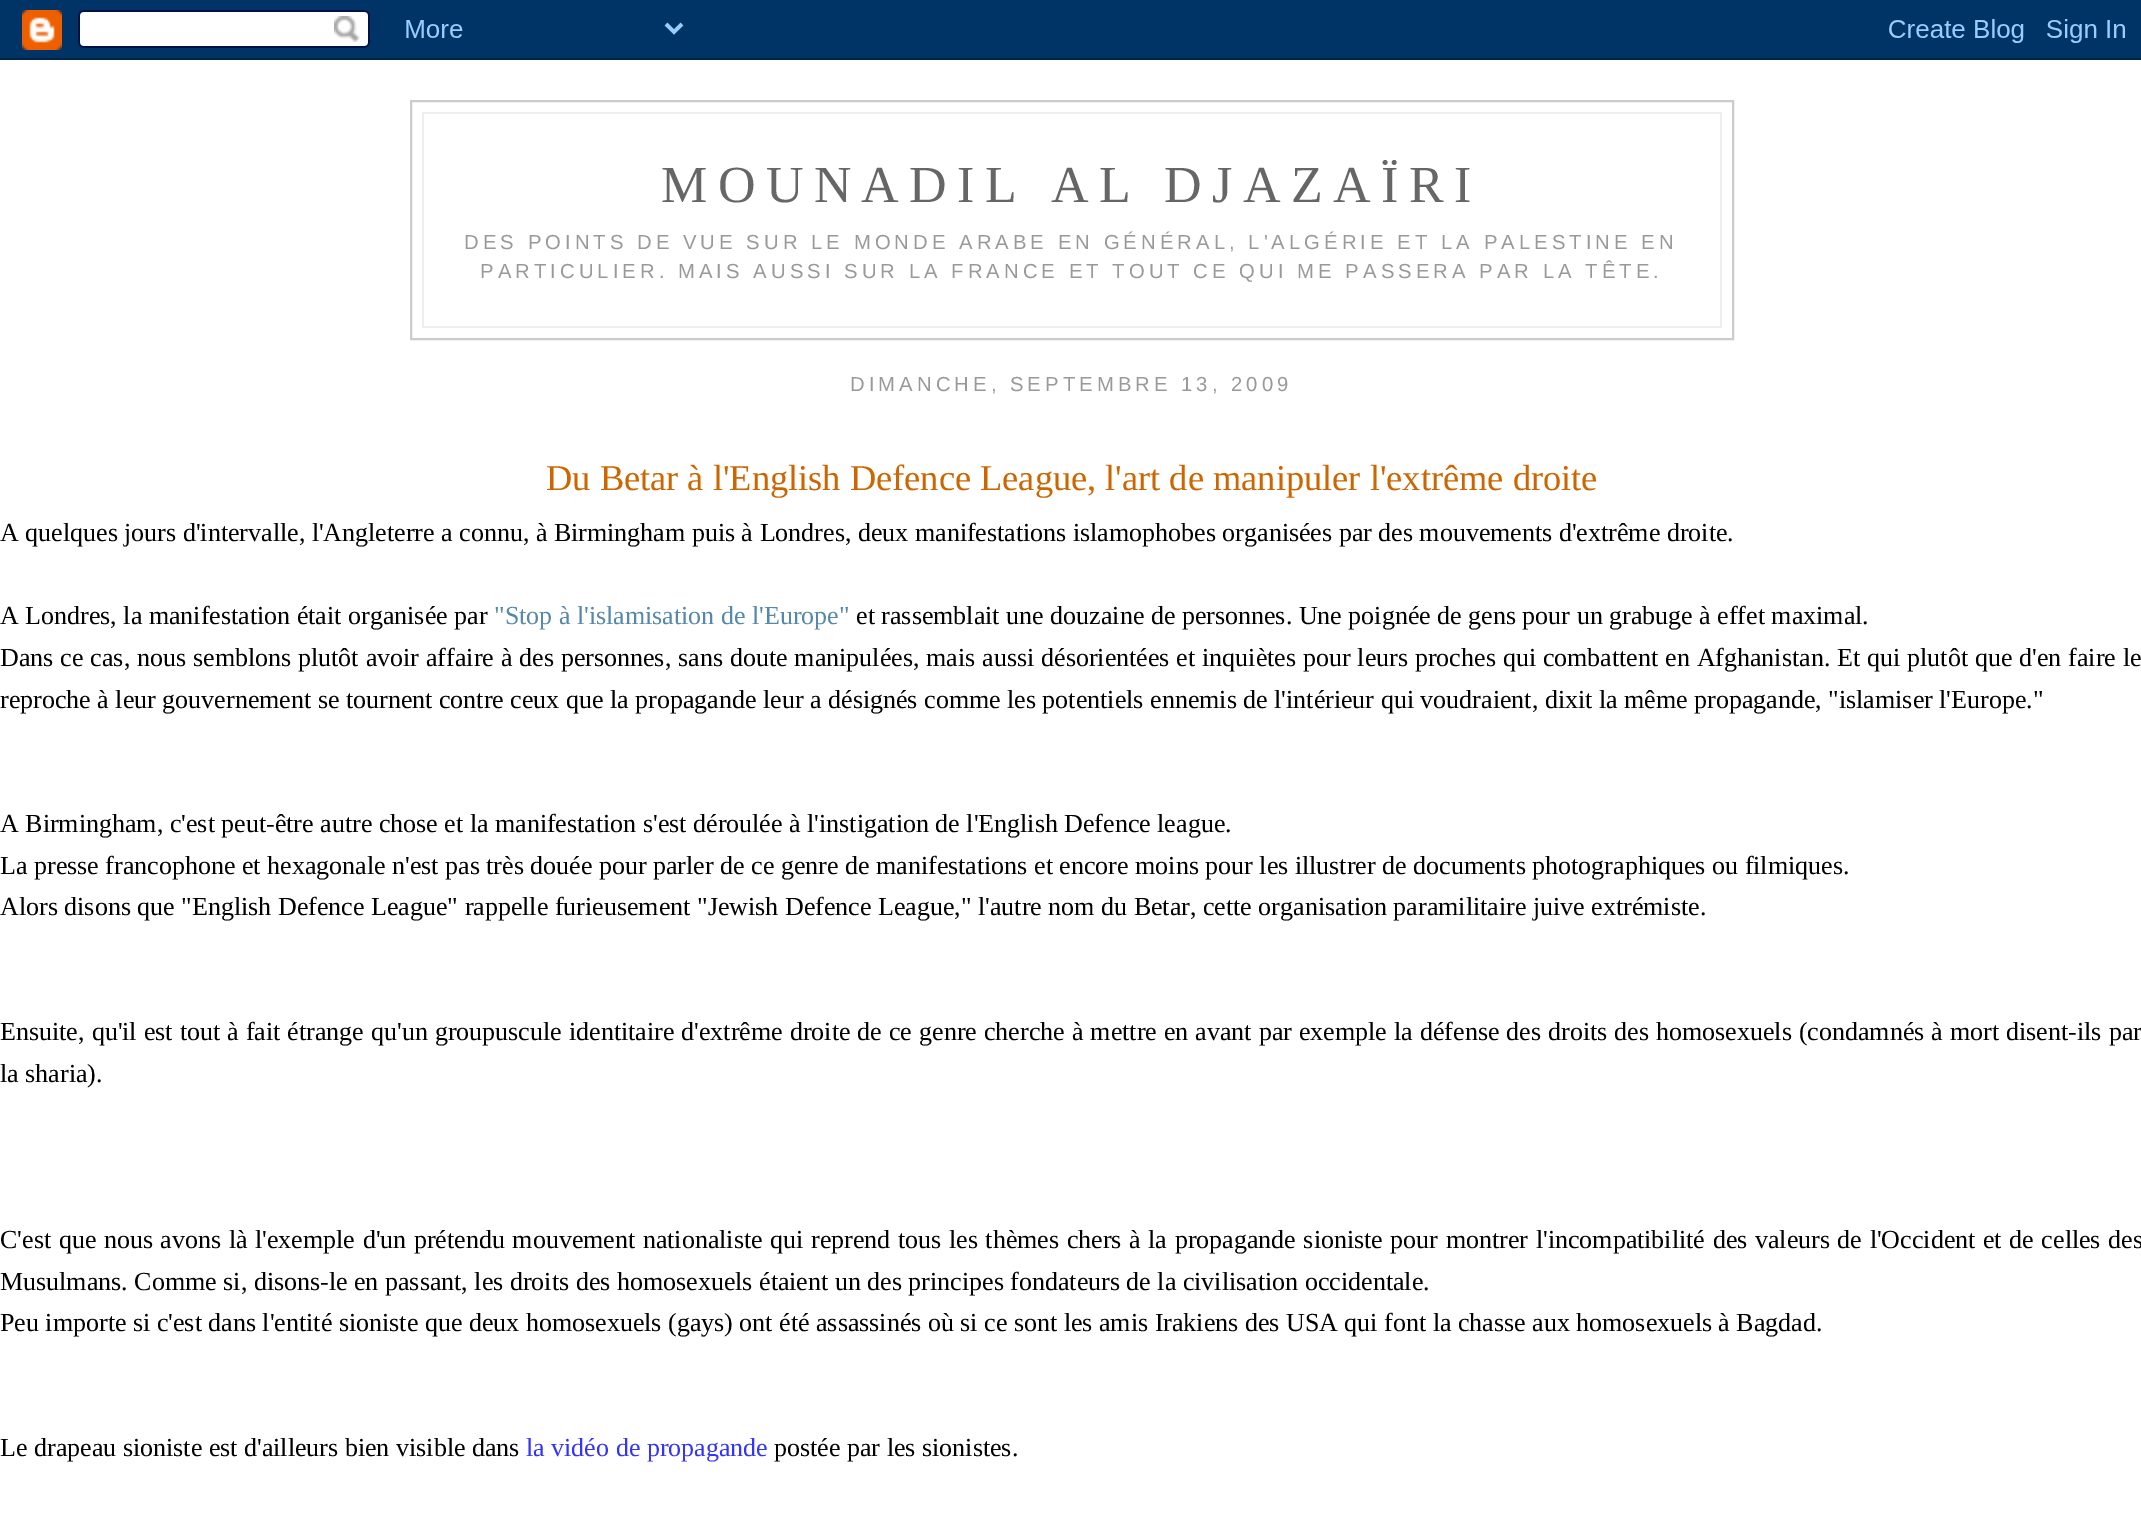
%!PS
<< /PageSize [2141 1513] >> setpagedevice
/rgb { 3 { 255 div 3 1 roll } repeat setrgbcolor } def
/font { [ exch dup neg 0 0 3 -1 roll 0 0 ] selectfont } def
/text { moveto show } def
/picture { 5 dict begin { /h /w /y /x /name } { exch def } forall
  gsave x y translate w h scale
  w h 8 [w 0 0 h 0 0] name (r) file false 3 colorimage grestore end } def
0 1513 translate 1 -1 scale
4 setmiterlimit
255 255 255 rgb
0 0 2141 1513 rectfill
(img_01.rgb) 0 0 2141 60 picture
204 204 204 rgb
2 setlinewidth
411 101 1322 238 rectstroke
238 238 238 rgb
422 112 1300 2 rectfill
1720 112 2 216 rectfill
422 112 2 118 rectfill
422 326 1300 2 rectfill
422 230 2 98 rectfill
/LiberationSerif-Regular 52 font
102 102 102 rgb
661 202 moveto 10.4 0 (MOUNADIL AL DJAZAÏRI) ashow
/LiberationSans-Regular 20.28 font
153 153 153 rgb
464 249 moveto 4.05 0 (DES POINTS DE VUE SUR LE MONDE ARABE EN GÉNÉRAL, L'ALGÉRIE ET LA PALESTINE EN) ashow
480 278 moveto 4.05 0 (PARTICULIER. MAIS AUSSI SUR LA FRANCE ET TOUT CE QUI ME PASSERA PAR LA TÊTE.) ashow
850 391 moveto 4.05 0 (DIMANCHE, SEPTEMBRE 13, 2009) ashow
/LiberationSerif-Regular 36.4 font
204 102 0 rgb
(Du Betar à l'English Defence League, l'art de manipuler l'extrême droite) 546 490 text
/LiberationSerif-Regular 26 font
0 0 0 rgb
(A quelques jours d'intervalle, l'Angleterre a connu, à Birmingham puis à Londres, deux manifestations islamophobes organisées par des mouvements d'extrême droite.) 0 541 text
(A Londres, la manifestation était organisée par) 0 624 text
85 136 170 rgb
("Stop à l'islamisation de l'Europe") 494 624 text
0 0 0 rgb
(et rassemblait une douzaine de personnes. Une poignée de gens pour un grabuge à effet maximal.) 856 624 text
0 666 moveto 0.4 0 32 (Dans ce cas, nous semblons plutôt avoir affaire à des personnes, sans doute manipulées, mais aussi désorientées et inquiètes pour leurs proches qui combattent en Afghanistan. Et qui plutôt que d'en faire le) widthshow
(reproche à leur gouvernement se tournent contre ceux que la propagande leur a désignés comme les potentiels ennemis de l'intérieur qui voudraient, dixit la même propagande, "islamiser l'Europe.") 0 708 text
(A Birmingham, c'est peut-être autre chose et la manifestation s'est déroulée à l'instigation de l'English Defence league.) 0 832 text
(La presse francophone et hexagonale n'est pas très douée pour parler de ce genre de manifestations et encore moins pour les illustrer de documents photographiques ou filmiques.) 0 874 text
(Alors disons que "English Defence League" rappelle furieusement "Jewish Defence League," l'autre nom du Betar, cette organisation paramilitaire juive extrémiste.) 0 915 text
0 1040 moveto 0.55 0 32 (Ensuite, qu'il est tout à fait étrange qu'un groupuscule identitaire d'extrême droite de ce genre cherche à mettre en avant par exemple la défense des droits des homosexuels \(condamnés à mort disent-ils par) widthshow
(la sharia\).) 0 1082 text
0 1248 moveto 1.1 0 32 (C'est que nous avons là l'exemple d'un prétendu mouvement nationaliste qui reprend tous les thèmes chers à la propagande sioniste pour montrer l'incompatibilité des valeurs de l'Occident et de celles des) widthshow
(Musulmans. Comme si, disons-le en passant, les droits des homosexuels étaient un des principes fondateurs de la civilisation occidentale.) 0 1290 text
(Peu importe si c'est dans l'entité sioniste que deux homosexuels \(gays\) ont été assassinés où si ce sont les amis Irakiens des USA qui font la chasse aux homosexuels à Bagdad.) 0 1331 text
(Le drapeau sioniste est d'ailleurs bien visible dans) 0 1456 text
51 51 255 rgb
(la vidéo de propagande) 526 1456 text
0 0 0 rgb
(postée par les sionistes.) 774 1456 text
showpage
